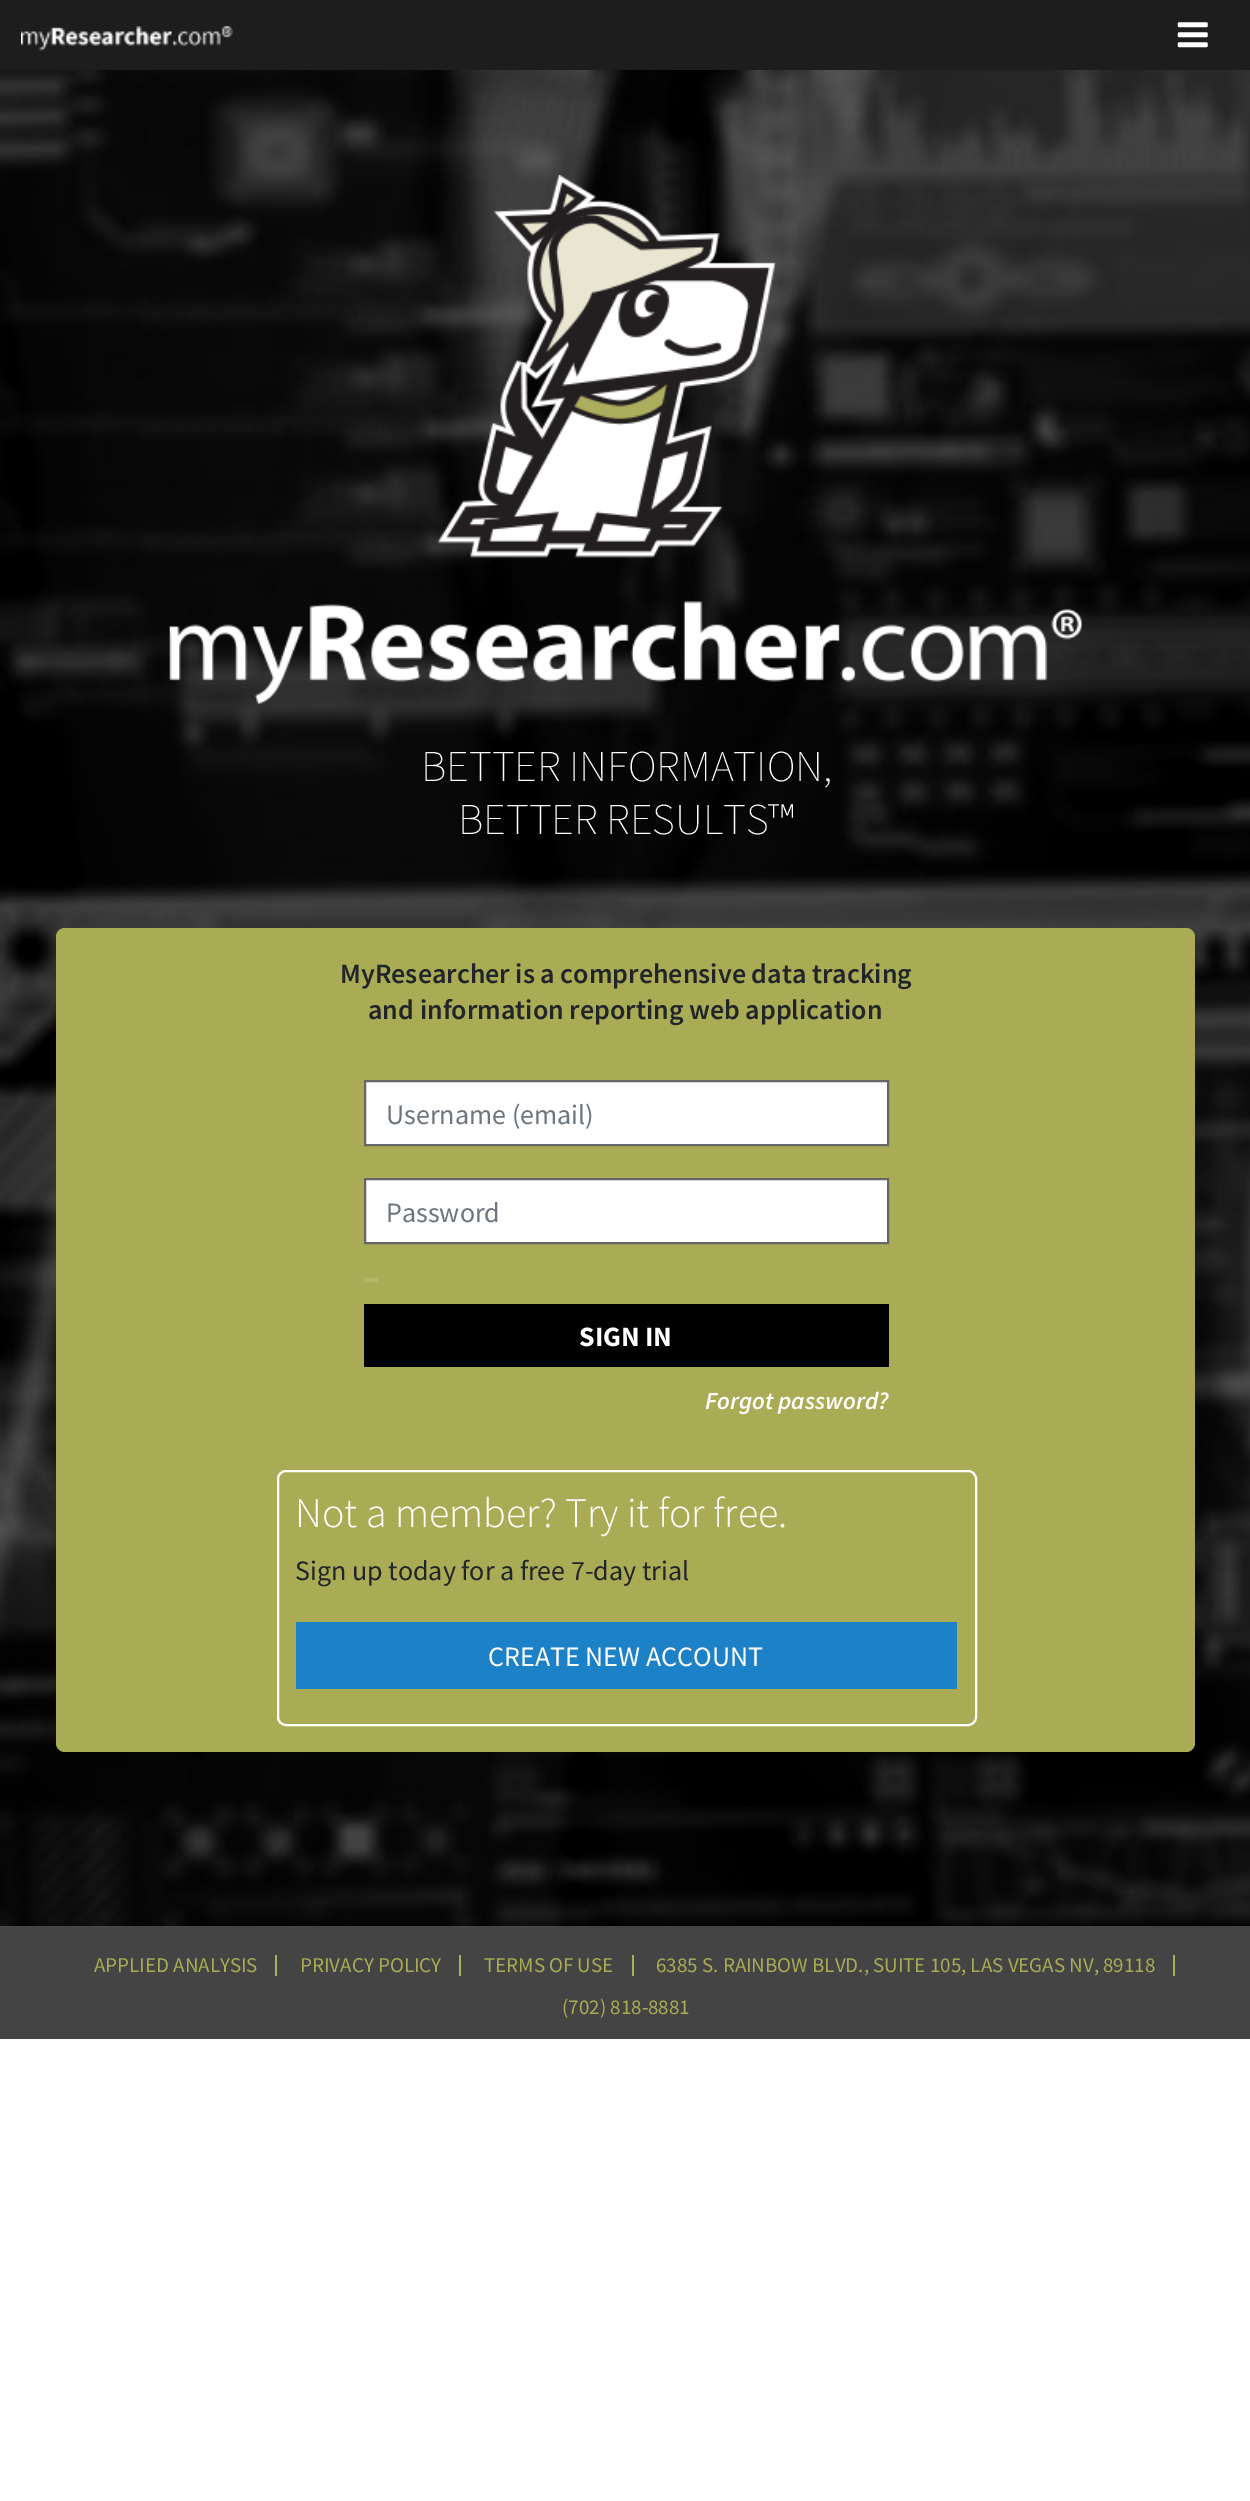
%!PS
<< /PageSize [1250 2501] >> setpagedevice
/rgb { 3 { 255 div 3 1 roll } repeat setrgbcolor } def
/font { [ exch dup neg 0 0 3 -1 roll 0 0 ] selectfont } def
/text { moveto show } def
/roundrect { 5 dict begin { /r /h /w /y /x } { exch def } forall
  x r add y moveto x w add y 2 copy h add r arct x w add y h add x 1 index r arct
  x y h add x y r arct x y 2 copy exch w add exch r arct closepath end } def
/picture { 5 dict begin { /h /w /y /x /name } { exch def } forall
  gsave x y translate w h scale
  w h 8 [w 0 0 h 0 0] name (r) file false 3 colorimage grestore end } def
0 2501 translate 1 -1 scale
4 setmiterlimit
255 255 255 rgb
0 0 1250 2501 rectfill
29 29 29 rgb
0 0 1250 70 rectfill
(img_01.rgb) 21 26 212 26 picture
(img_02.rgb) 1177 22 31 26 picture
(img_03.rgb) 0 70 1250 1857 picture
(img_04.rgb) 169 175 913 529 picture
169 172 84 rgb
56 928 1139 824 9 roundrect fill
255 255 255 rgb
365 1081 moveto 523 0 rlineto 0 64 rlineto -523 0 rlineto closepath gsave fill grestore
102 102 102 rgb
2 setlinewidth
stroke
255 255 255 rgb
365 1179 moveto 523 0 rlineto 0 64 rlineto -523 0 rlineto closepath gsave fill grestore
102 102 102 rgb
stroke
180 183 106 rgb
364 1278 14 4 rectfill
0 0 0 rgb
364 1304 525 63 rectfill
255 255 255 rgb
278 1471 698 254 8 roundrect stroke
28 129 199 rgb
296 1622 661 67 rectfill
68 68 68 rgb
0 1927 1250 112 rectfill
173 174 94 rgb
275 1955 2 21 rectfill
459 1955 2 21 rectfill
632 1955 2 21 rectfill
1173 1955 2 21 rectfill
/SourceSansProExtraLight-ExtraLight 44 font
255 255 255 rgb
(BETTER INFORMATION,) 421 781 text
(BETTER RESULTS™) 458 834 text
/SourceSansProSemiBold-SemiBold 28 font
33 37 41 rgb
(MyResearcher is a comprehensive data tracking) 340 983 text
(and information reporting web application) 368 1019 text
/SourceSansPro-Regular 28 font
108 117 125 rgb
(Username \(email\)) 386 1124 text
(Password) 386 1222 text
/SourceSansPro-Bold 28 font
255 255 255 rgb
(SIGN IN) 579 1346 text
/SourceSansProSemiBold-SemiBoldItalic 24.5 font
(Forgot password?) 705 1409 text
/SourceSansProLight-Light 42 font
(Not a member? Try it for free.) 295 1527 text
/SourceSansPro-Regular 28 font
33 37 41 rgb
(Sign up today for a free 7-day trial) 295 1580 text
255 255 255 rgb
(CREATE NEW ACCOUNT) 488 1666 text
/SourceSansPro-Regular 21 font
169 172 84 rgb
(APPLIED ANALYSIS) 94 1972 text
(PRIVACY POLICY) 300 1972 text
(TERMS OF USE) 484 1972 text
(6385 S. RAINBOW BLVD., SUITE 105, LAS VEGAS NV, 89118) 656 1972 text
(\(702\) 818-8881) 562 2014 text
showpage
